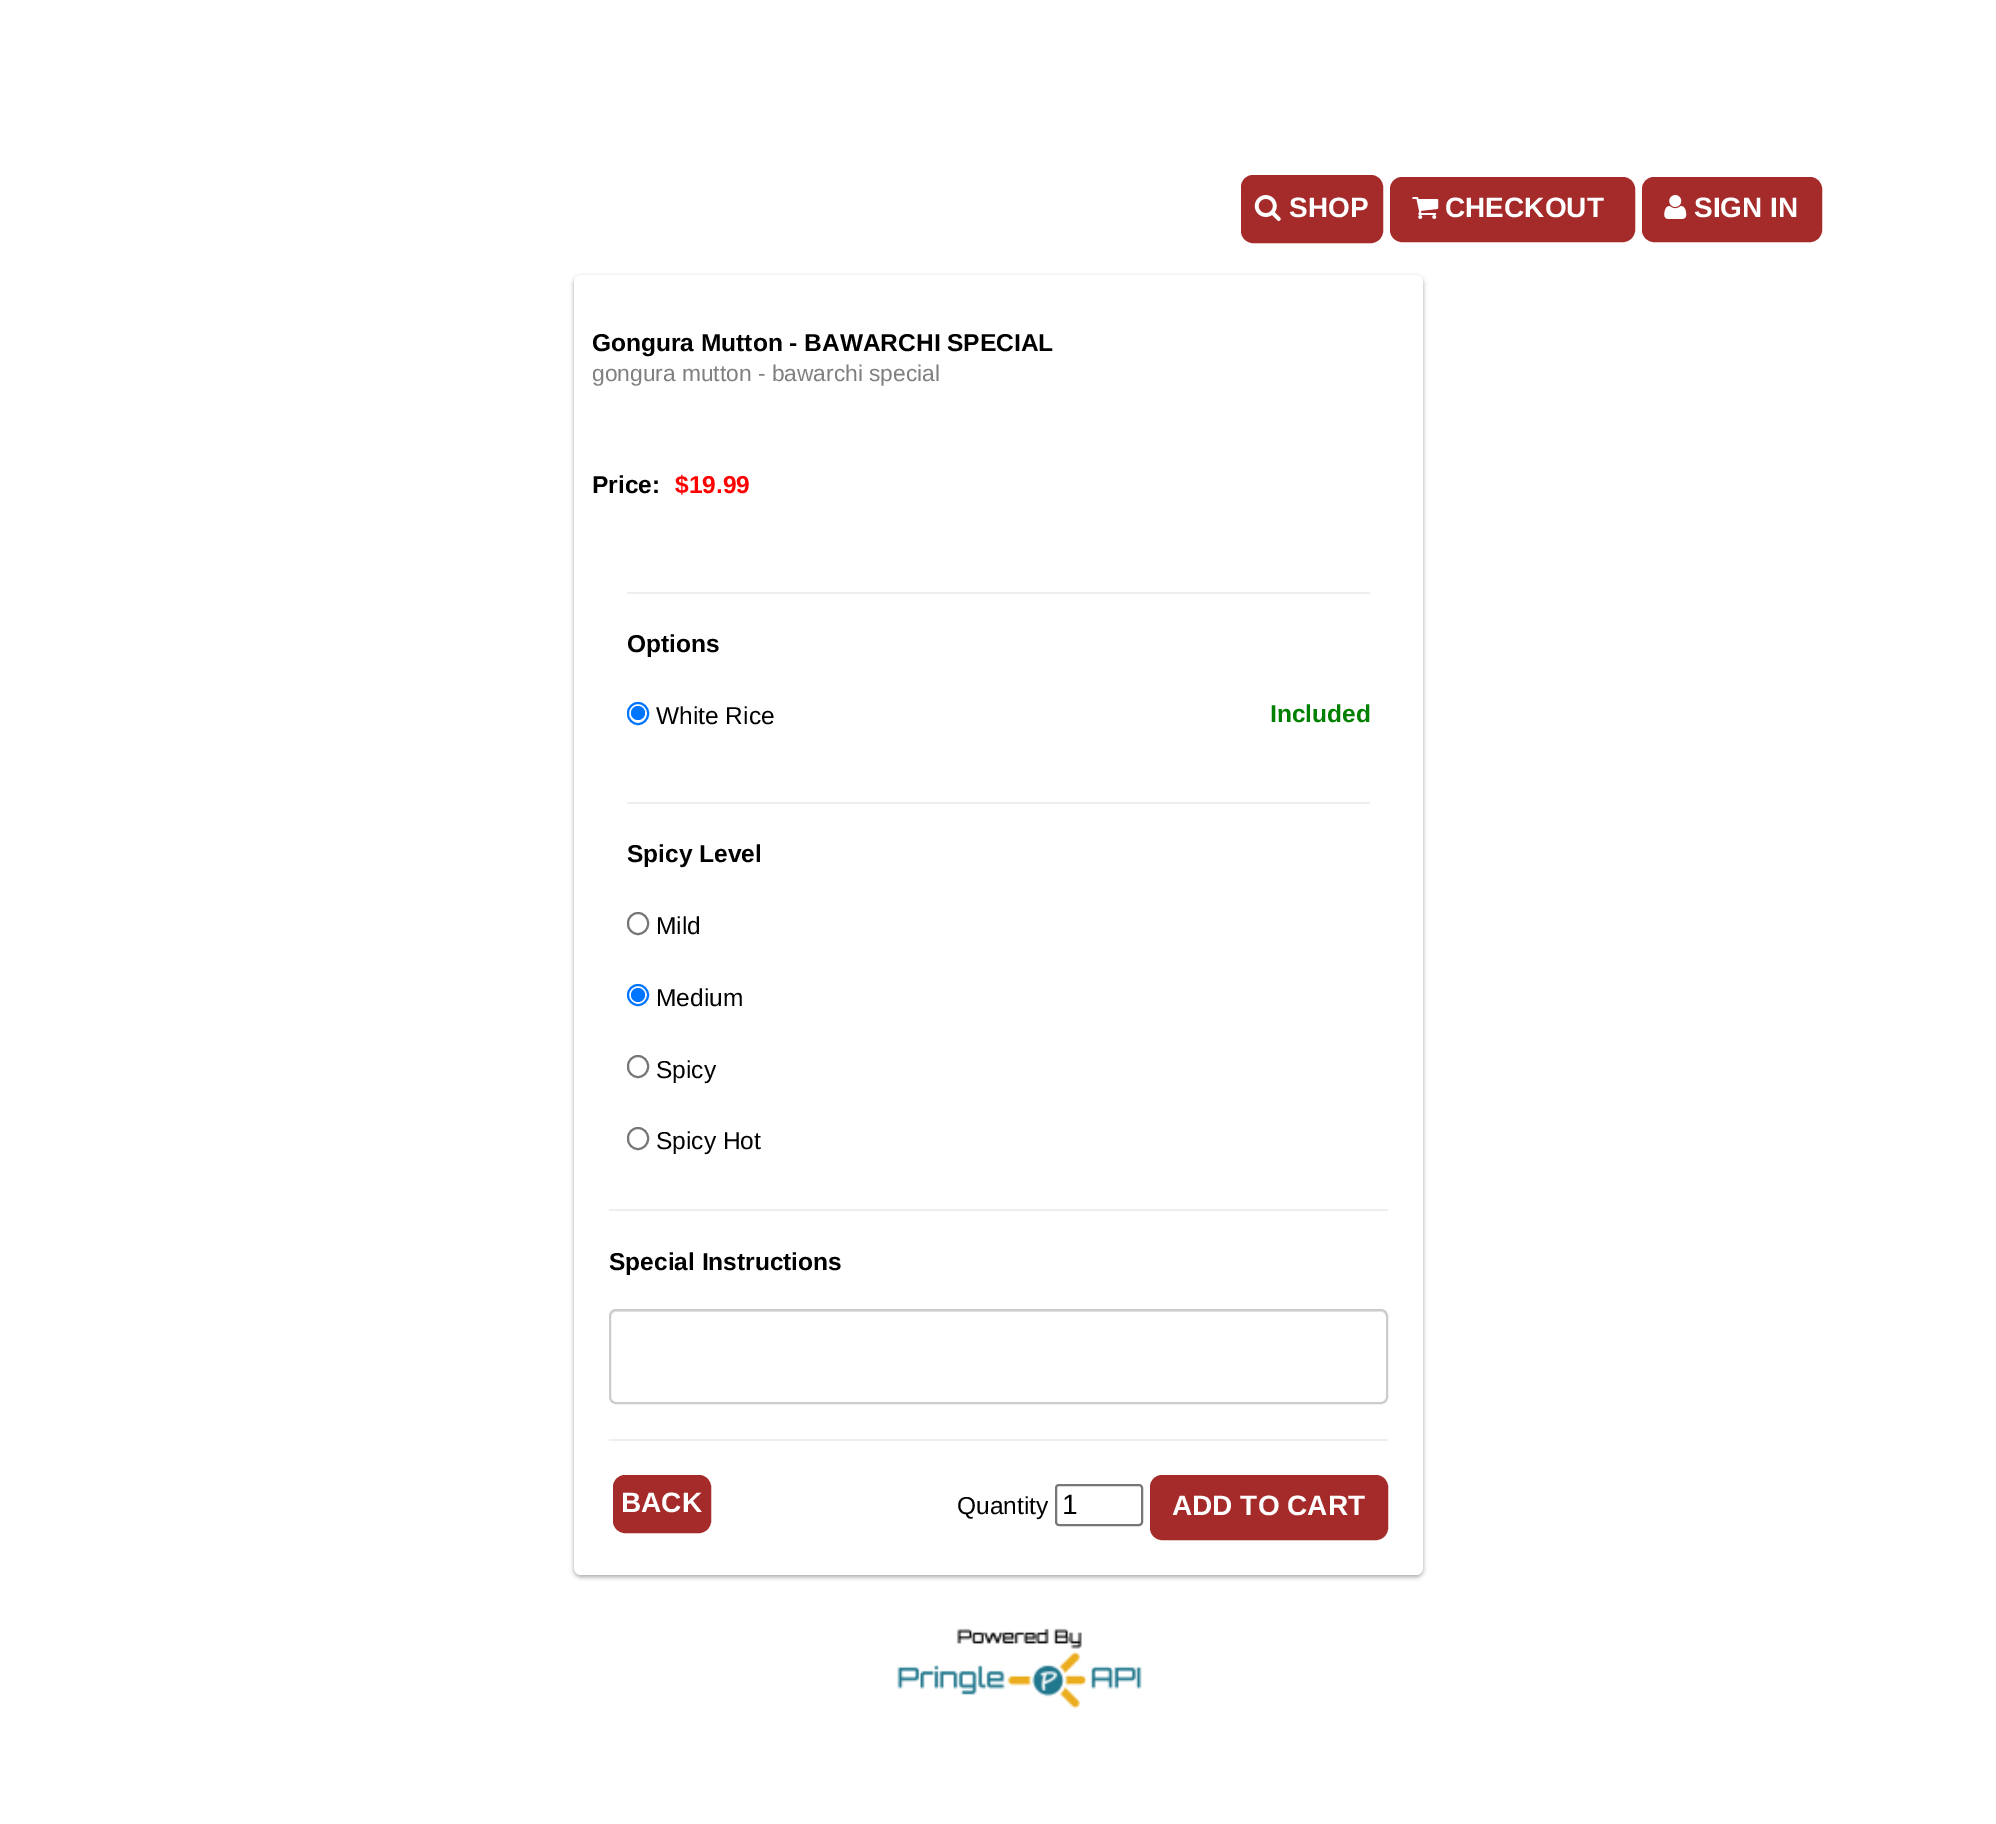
%!PS
<< /PageSize [1996 1824] /PageUsesTransparency true >> setpagedevice
/rgb { 3 { 255 div 3 1 roll } repeat setrgbcolor } def
/font { [ exch dup neg 0 0 3 -1 roll 0 0 ] selectfont } def
/text { moveto show } def
/alpha { dup .setfillconstantalpha .setstrokeconstantalpha } def
/circle { newpath 0 360 arc closepath } def
/roundrect { 5 dict begin { /r /h /w /y /x } { exch def } forall
  x r add y moveto x w add y 2 copy h add r arct x w add y h add x 1 index r arct
  x y h add x y r arct x y 2 copy exch w add exch r arct closepath end } def
/shadow { 12 dict begin { /a /b /q /h /w /y /x } { exch def } forall gsave /was 0 def
  9 -2 -9 { dup b mul 4 div /e exch def 1 sub .425 mul 2.718 exch exp 1 add a .99 .min exch div /now exch def
    1 1 now sub 1 was sub div sub alpha /was now def
    w h .min e 2 mul add 0 gt { x e sub y e sub w e 2 mul add h e 2 mul add
      q e add b .6 mul add w h .min 2 div e add .min 0 .max roundrect fill } if } for grestore end } def
/picture { 5 dict begin { /h /w /y /x /name } { exch def } forall
  gsave x y translate w h scale
  w h 8 [w 0 0 h 0 0] name (r) file false 3 colorimage grestore end } def
0 .pushpdf14devicefilter
0 1824 translate 1 -1 scale
4 setmiterlimit
255 255 255 rgb
0 0 1996 1824 rectfill
165 42 42 rgb
1242 176 140 66 11 roundrect gsave fill grestore
2 setlinewidth
stroke
(img_01.rgb) 1254 195 27 26 picture
1391 178 243 63 11 roundrect gsave fill grestore
stroke
(img_02.rgb) 1412 197 27 22 picture
1643 178 178 63 11 roundrect gsave fill grestore
stroke
(img_03.rgb) 1664 195 23 24 picture
0 0 0 rgb
574 277 849 1300 7 2 0.24 shadow
574 277 849 1300 7 2.5 0.12 shadow
255 255 255 rgb
574 275 849 1300 7 roundrect fill
238 238 238 rgb
627 592 743 2 rectfill
0 117 255 rgb
628 703 20 21 10 roundrect stroke
638 713 7 circle fill
238 238 238 rgb
627 802 743 2 rectfill
118 118 118 rgb
628 913 20 21 10 roundrect stroke
0 117 255 rgb
638 995 10 circle stroke
638 995 7 circle fill
118 118 118 rgb
628 1056 20 21 10 roundrect stroke
628 1128 20 21 10 roundrect stroke
238 238 238 rgb
609 1209 779 2 rectfill
236 236 236 rgb
616 1312 moveto 765 0 rlineto 3 0 5 3 5 6 rcurveto 0 -3 -1 -7 -5 -7 rcurveto -765 0 rlineto -4 0 -5 4 -5 7 rcurveto 0 -3 2 -6 5 -6 rcurveto closepath fill
204 204 204 rgb
610 1310 777 93 6 roundrect stroke
238 238 238 rgb
609 1439 779 2 rectfill
165 42 42 rgb
614 1476 96 56 11 roundrect gsave fill grestore
stroke
118 118 118 rgb
1056 1485 86 40 3 roundrect stroke
165 42 42 rgb
1151 1476 236 63 11 roundrect gsave fill grestore
stroke
(img_04.rgb) 897 1628 245 81 picture
/LiberationSans-Bold 28 font
255 255 255 rgb
(SHOP) 1289 217 text
(CHECKOUT) 1445 217 text
(SIGN IN) 1694 217 text
/LiberationSans-Bold 24.5 font
0 0 0 rgb
(Gongura Mutton - BAWARCHI SPECIAL) 592 351 text
/LiberationSans-Regular 22.75 font
128 128 128 rgb
(gongura mutton - bawarchi special) 592 381 text
/LiberationSans-Bold 24.5 font
0 0 0 rgb
(Price:) 592 493 text
255 0 0 rgb
($19.99) 675 493 text
0 0 0 rgb
(Options) 627 652 text
/LiberationSans-Regular 24.5 font
(White Rice) 656 724 text
/LiberationSans-Bold 24.5 font
0 128 0 rgb
(Included) 1270 722 text
0 0 0 rgb
(Spicy Level) 627 862 text
/LiberationSans-Regular 24.5 font
(Mild) 656 934 text
(Medium) 656 1006 text
(Spicy) 656 1078 text
(Spicy Hot) 656 1149 text
/LiberationSans-Bold 24.5 font
(Special Instructions) 609 1270 text
/LiberationSans-Bold 28 font
255 255 255 rgb
(BACK) 621 1512 text
/LiberationSans-Regular 24.5 font
0 0 0 rgb
(Quantity) 957 1514 text
/LiberationSans-Regular 28 font
(1) 1062 1514 text
/LiberationSans-Bold 28 font
255 255 255 rgb
(ADD TO CART) 1172 1515 text
.poppdf14devicefilter showpage
